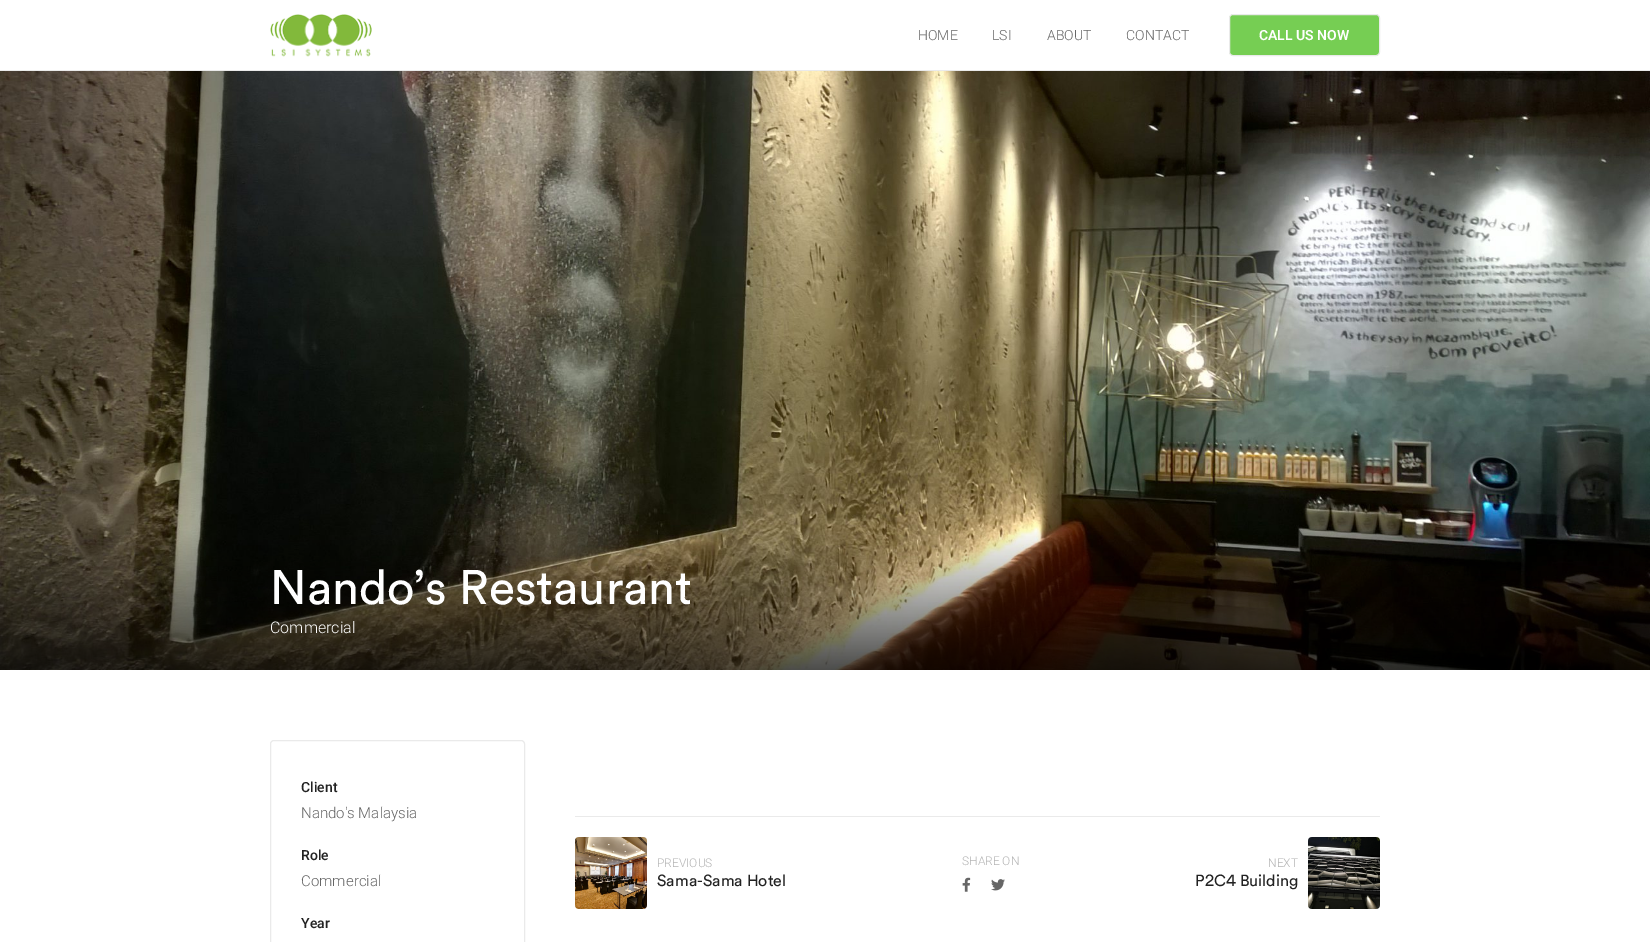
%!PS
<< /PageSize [1650 942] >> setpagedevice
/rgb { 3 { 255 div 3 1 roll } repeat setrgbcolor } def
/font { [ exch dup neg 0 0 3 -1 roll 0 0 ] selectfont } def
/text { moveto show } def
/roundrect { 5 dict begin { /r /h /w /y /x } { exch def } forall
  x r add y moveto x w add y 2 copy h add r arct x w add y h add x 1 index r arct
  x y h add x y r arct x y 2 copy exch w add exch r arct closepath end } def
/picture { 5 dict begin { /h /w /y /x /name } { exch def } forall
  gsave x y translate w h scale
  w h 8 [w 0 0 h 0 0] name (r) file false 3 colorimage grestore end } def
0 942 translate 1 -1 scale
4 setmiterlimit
255 255 255 rgb
0 0 1650 942 rectfill
234 234 234 rgb
0 70 1650 1 rectfill
(img_01.rgb) 270 14 102 43 picture
118 206 83 rgb
1229.5 14.5 150 41 3.5 roundrect gsave fill grestore
234 234 234 rgb
stroke
(img_02.rgb) 0 71 1650 599 picture
270.5 740.5 254 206 3.5 roundrect stroke
575 816 805 1 rectfill
(img_03.rgb) 575 837 72 72 picture
(img_04.rgb) 962 877 9 15 picture
(img_05.rgb) 991 879 14 12 picture
(img_06.rgb) 1308 837 72 72 picture
/Roboto-Light 14 font
102 102 102 rgb
(HOME) 918 40 text
(LSI) 992 40 text
(ABOUT) 1047 40 text
(CONTACT) 1126 40 text
/Roboto-SemiBold 14 font
255 255 255 rgb
(CALL US NOW) 1259 40 text
/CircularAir-Regular 48 font
(Nando’s Restaurant) 270 604 text
/Roboto-Light 16 font
(Commercial) 270 633 text
/Roboto-Medium 14 font
34 34 34 rgb
(Client) 301 792 text
/Roboto-Light 15 font
102 102 102 rgb
(Nando's Malaysia) 301 818 text
/Roboto-Medium 14 font
34 34 34 rgb
(Role) 301 860 text
/Roboto-Light 15 font
102 102 102 rgb
(Commercial) 301 886 text
/Roboto-Medium 14 font
34 34 34 rgb
(Year) 301 928 text
/Roboto-Light 12 font
181 181 181 rgb
(PREVIOUS) 657 867 text
/CircularAir-Regular 16 font
34 34 34 rgb
(Sama-Sama Hotel) 657 886 text
/Roboto-Light 12 font
181 181 181 rgb
(SHARE ON) 962 865 text
(NEXT) 1268 867 text
/CircularAir-Regular 16 font
34 34 34 rgb
(P2C4 Building) 1195 886 text
showpage
